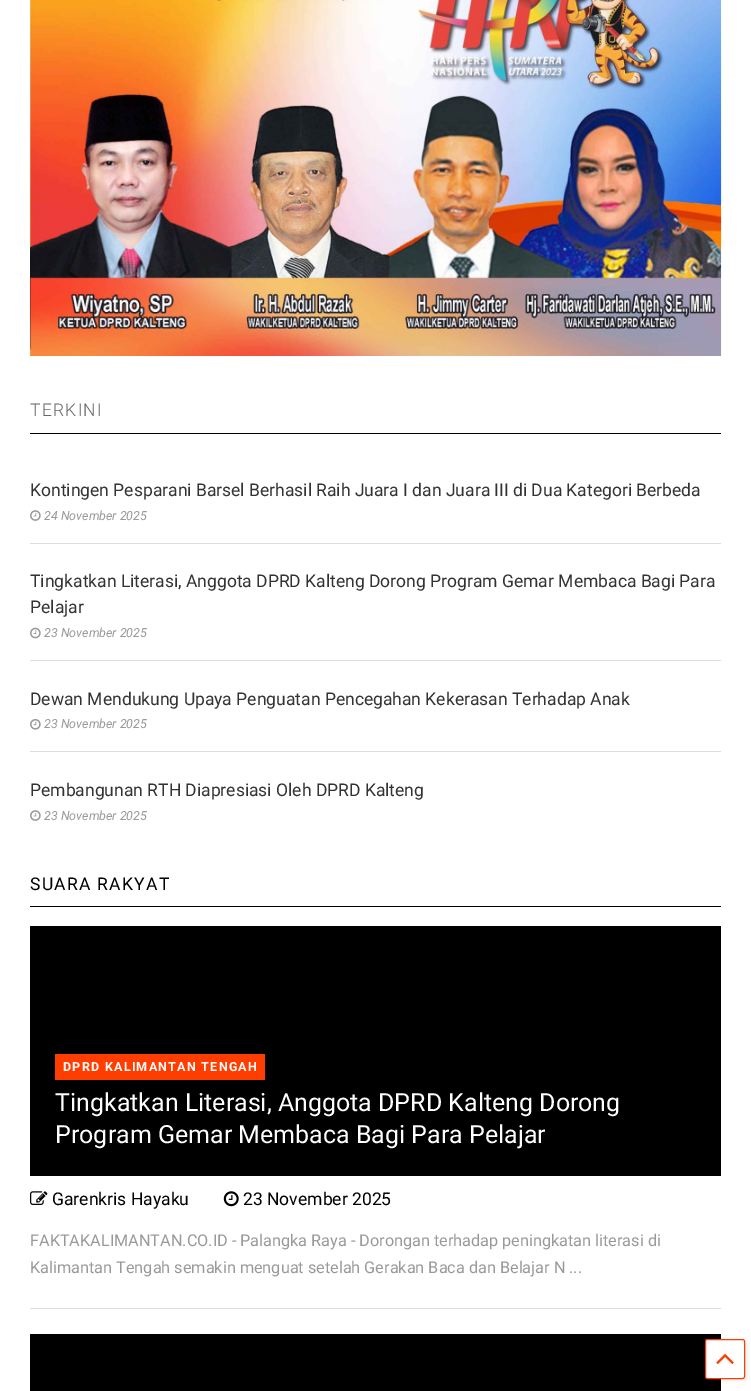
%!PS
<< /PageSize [751 1391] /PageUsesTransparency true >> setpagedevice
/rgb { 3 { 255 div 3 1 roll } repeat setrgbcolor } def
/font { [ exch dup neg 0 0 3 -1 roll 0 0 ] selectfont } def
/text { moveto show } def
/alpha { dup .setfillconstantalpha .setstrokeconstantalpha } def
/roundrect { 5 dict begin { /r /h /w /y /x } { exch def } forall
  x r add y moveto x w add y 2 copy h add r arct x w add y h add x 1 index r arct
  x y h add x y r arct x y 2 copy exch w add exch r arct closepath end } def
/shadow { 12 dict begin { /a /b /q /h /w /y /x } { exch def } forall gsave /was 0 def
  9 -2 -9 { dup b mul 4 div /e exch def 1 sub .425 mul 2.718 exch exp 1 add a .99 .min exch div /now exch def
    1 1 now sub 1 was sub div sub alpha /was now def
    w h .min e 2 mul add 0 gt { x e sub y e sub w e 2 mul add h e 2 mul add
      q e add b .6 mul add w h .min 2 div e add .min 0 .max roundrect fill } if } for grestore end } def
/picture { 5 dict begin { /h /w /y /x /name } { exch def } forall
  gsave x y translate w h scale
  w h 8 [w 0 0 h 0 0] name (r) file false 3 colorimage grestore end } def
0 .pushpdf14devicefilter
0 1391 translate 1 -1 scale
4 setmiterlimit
255 255 255 rgb
0 0 751 1391 rectfill
(img_01.rgb) 30 0 692 356 picture
0 0 0 rgb
30 433 691 1 rectfill
(img_02.rgb) 30 510 11 11 picture
221 221 221 rgb
30 543 691 1 rectfill
(img_03.rgb) 30 627 11 12 picture
30 660 691 1 rectfill
(img_04.rgb) 30 719 11 11 picture
30 751 691 1 rectfill
(img_02.rgb) 30 810 11 11 picture
0 0 0 rgb
30 906 691 1 rectfill
30 926 691 250 rectfill
255 61 0 rgb
55 1054 210 26 rectfill
(img_05.rgb) 30 1191 18 14 picture
(img_06.rgb) 223 1191 16 16 picture
221 221 221 rgb
30 1308 691 1 rectfill
0 0 0 rgb
30 1334 691 57 rectfill
708 1341 40 40 2.5 2 0.05 shadow
255 255 255 rgb
705.5 1339.5 39 39 2 roundrect gsave fill grestore
255 61 0 rgb
stroke
(img_07.rgb) 716 1354 18 10 picture
/Roboto-Light 17.5 font
102 102 102 rgb
30 416 moveto 1.25 0 (TERKINI) ashow
/Roboto-Regular 17.5 font
51 51 51 rgb
(Kontingen Pesparani Barsel Berhasil Raih Juara I dan Juara III di Dua Kategori Berbeda) 30 496 text
/Roboto-Italic 12.5 font
153 153 153 rgb
(24 November 2025) 44 520 text
/Roboto-Regular 17.5 font
51 51 51 rgb
(Tingkatkan Literasi, Anggota DPRD Kalteng Dorong Program Gemar Membaca Bagi Para) 30 587 text
(Pelajar) 30 613 text
/Roboto-Italic 12.5 font
153 153 153 rgb
(23 November 2025) 44 637 text
/Roboto-Regular 17.5 font
51 51 51 rgb
(Dewan Mendukung Upaya Penguatan Pencegahan Kekerasan Terhadap Anak) 30 705 text
/Roboto-Italic 12.5 font
153 153 153 rgb
(23 November 2025) 44 728 text
/Roboto-Regular 17.5 font
51 51 51 rgb
(Pembangunan RTH Diapresiasi Oleh DPRD Kalteng) 30 796 text
/Roboto-Italic 12.5 font
153 153 153 rgb
(23 November 2025) 44 820 text
/Roboto-Regular 17.5 font
0 0 0 rgb
30 890 moveto 1.25 0 (SUARA RAKYAT) ashow
/Roboto-Bold 12.5 font
255 255 255 rgb
63 1071 moveto 1.25 0 (DPRD KALIMANTAN TENGAH) ashow
/Roboto-Regular 25 font
(Tingkatkan Literasi, Anggota DPRD Kalteng Dorong) 55 1111 text
(Program Gemar Membaca Bagi Para Pelajar) 55 1143 text
/Roboto-Regular 17.5 font
0 0 0 rgb
(Garenkris Hayaku) 52 1205 text
(23 November 2025) 243 1205 text
/Roboto-Regular 16.25 font
153 153 153 rgb
(FAKTAKALIMANTAN.CO.ID - Palangka Raya - Dorongan terhadap peningkatan literasi di) 30 1246 text
(Kalimantan Tengah semakin menguat setelah Gerakan Baca dan Belajar N ...) 30 1273 text
.poppdf14devicefilter showpage
